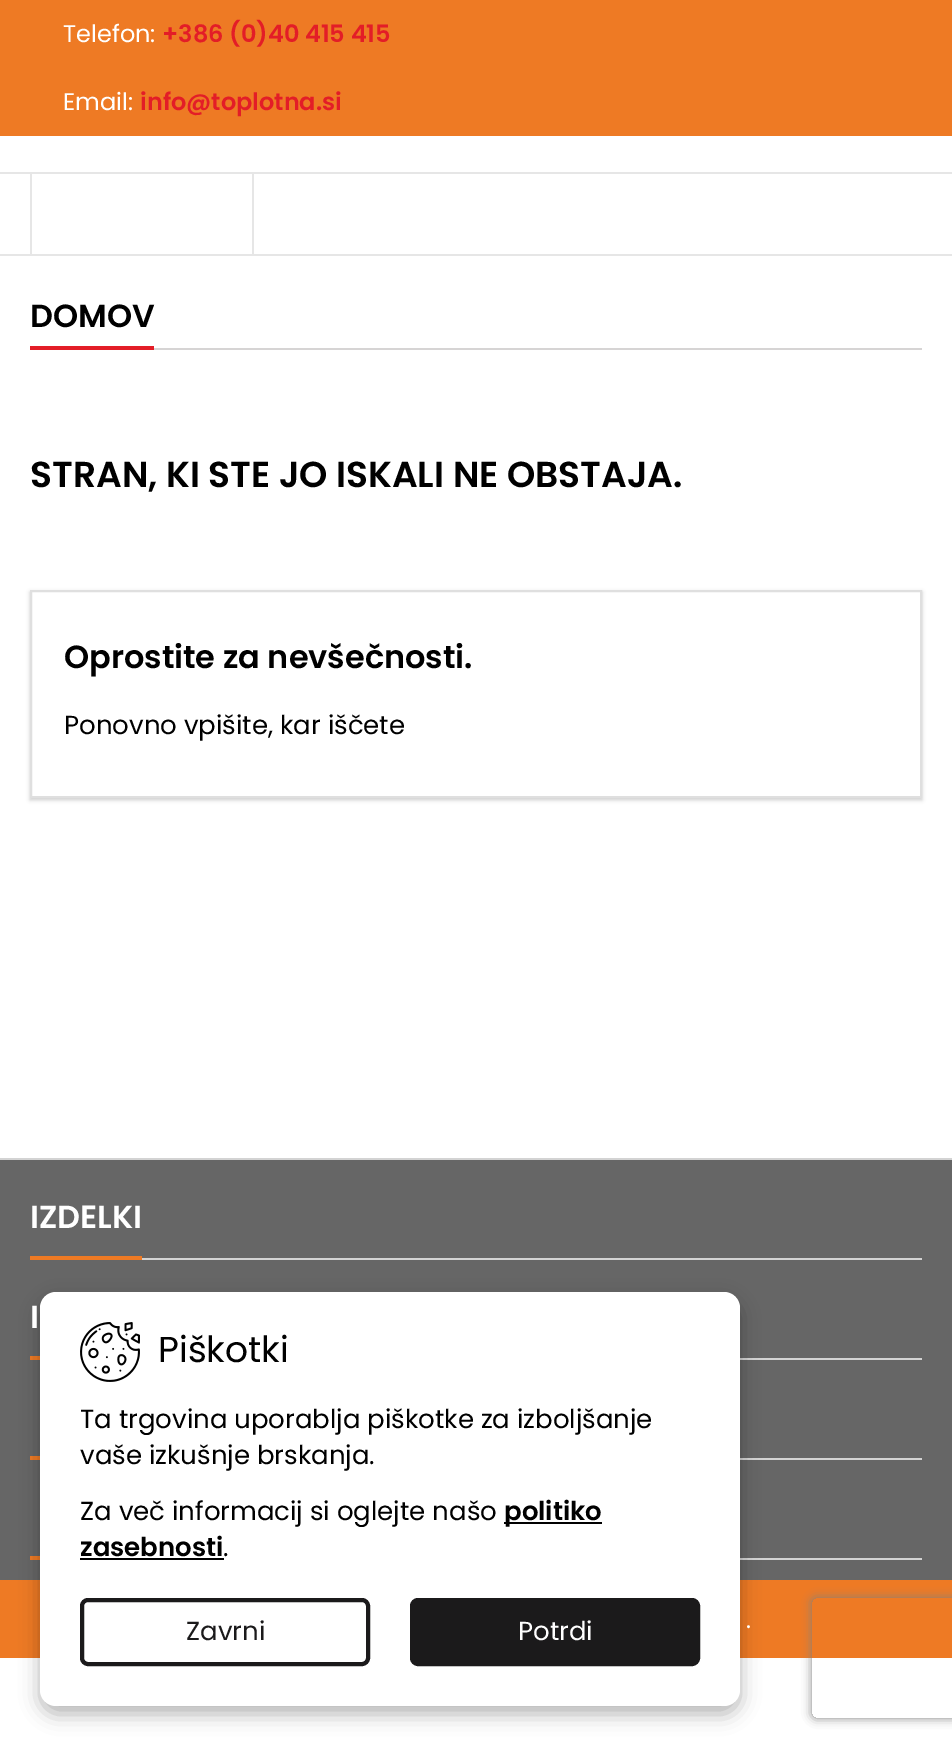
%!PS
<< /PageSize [952 1745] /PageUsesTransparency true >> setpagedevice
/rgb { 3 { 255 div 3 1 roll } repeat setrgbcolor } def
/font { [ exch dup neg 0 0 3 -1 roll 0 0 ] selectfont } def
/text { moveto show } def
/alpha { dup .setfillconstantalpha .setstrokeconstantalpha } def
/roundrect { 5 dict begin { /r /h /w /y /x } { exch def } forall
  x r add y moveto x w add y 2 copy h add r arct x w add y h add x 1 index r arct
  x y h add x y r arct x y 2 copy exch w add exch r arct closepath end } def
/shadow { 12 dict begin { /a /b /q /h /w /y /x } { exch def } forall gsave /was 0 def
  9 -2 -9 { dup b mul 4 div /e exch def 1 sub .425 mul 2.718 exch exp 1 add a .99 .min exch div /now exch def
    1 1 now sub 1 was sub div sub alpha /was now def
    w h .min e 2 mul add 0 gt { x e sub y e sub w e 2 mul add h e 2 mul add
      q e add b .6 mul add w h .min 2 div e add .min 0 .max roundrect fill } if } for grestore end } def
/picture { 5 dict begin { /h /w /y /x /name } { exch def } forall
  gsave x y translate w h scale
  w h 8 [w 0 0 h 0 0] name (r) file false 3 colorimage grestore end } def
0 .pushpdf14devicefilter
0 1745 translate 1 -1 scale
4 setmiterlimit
255 255 255 rgb
0 0 952 1745 rectfill
238 122 36 rgb
0 0 952 136 rectfill
230 230 230 rgb
0 172 952 2 rectfill
0 254 952 2 rectfill
252 174 2 80 rectfill
30 174 2 80 rectfill
214 212 212 rgb
154 348 768 2 rectfill
227 29 39 rgb
30 346 124 4 rectfill
gsave
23 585 moveto 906 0 rlineto 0 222 rlineto -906 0 rlineto closepath 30 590 moveto 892 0 rlineto 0 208 rlineto -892 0 rlineto closepath eoclip newpath
0 0 0 rgb
30 592 892 208 0 2 0.2 shadow
grestore
223 223 223 rgb
2 setlinewidth
31 591 890 206 rectstroke
102 102 102 rgb
0 1160 952 420 rectfill
211 211 211 rgb
0 1158 952 2 rectfill
142 1258 780 2 rectfill
238 122 36 rgb
30 1256 112 4 rectfill
211 211 211 rgb
740 1358 182 2 rectfill
238 122 36 rgb
30 1356 10 4 rectfill
211 211 211 rgb
740 1458 182 2 rectfill
238 122 36 rgb
30 1456 10 4 rectfill
211 211 211 rgb
740 1558 182 2 rectfill
238 122 36 rgb
30 1556 10 4 rectfill
0 1580 952 78 rectfill
0 0 0 rgb
40 1300 700 414 16 10 0.3 shadow
255 255 255 rgb
40 1292 700 414 16 roundrect fill
(img_01.rgb) 80 1322 60 60 picture
0 0 0 rgb
504 1522 98 2 rectfill
80 1558 144 2 rectfill
27 26 27 rgb
4 setlinewidth
82 1600 286 64 6 roundrect stroke
412 1600 286 64 6 roundrect gsave fill grestore
stroke
gsave
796 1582 moveto 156 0 rlineto 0 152 rlineto -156 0 rlineto closepath 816 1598 moveto 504 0 rlineto 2 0 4 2 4 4 rcurveto 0 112 rlineto 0 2 -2 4 -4 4 rcurveto -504 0 rlineto -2 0 -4 -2 -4 -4 rcurveto 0 -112 rlineto 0 -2 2 -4 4 -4 rcurveto closepath eoclip newpath
128 128 128 rgb
812 1598 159 120 4 5 1 shadow
grestore
/Poppins-Regular 24 font
255 255 255 rgb
(Telefon:) 63 42 text
/Poppins-SemiBold 24 font
227 29 39 rgb
(+386 \(0\)40 415 415) 162 42 text
/Poppins-Regular 24 font
255 255 255 rgb
(Email:) 63 110 text
/Poppins-SemiBold 24 font
227 29 39 rgb
(info@toplotna.si) 140 110 text
/Poppins-SemiBold 32 font
0 0 0 rgb
(DOMOV) 30 327 text
/Poppins-SemiBold 36 font
(STRAN, KI STE JO ISKALI NE OBSTAJA.) 30 487 text
/Poppins-SemiBold 32 font
(Oprostite za nevšečnosti.) 64 668 text
/Poppins-Regular 26 font
(Ponovno vpišite, kar iščete) 64 734 text
/Poppins-SemiBold 32 font
255 255 255 rgb
(IZDELKI) 30 1228 text
(I) 30 1328 text
/Poppins-Regular 36 font
0 0 0 rgb
(Piškotki) 158 1362 text
/Poppins-Regular 26 font
(Ta trgovina uporablja piškotke za izboljšanje) 80 1428 text
(vaše izkušnje brskanja.) 80 1464 text
(Za več informacij si oglejte našo) 80 1520 text
/Poppins-SemiBold 26 font
(politiko) 504 1520 text
(zasebnosti) 80 1556 text
/Poppins-Regular 26 font
(.) 223 1556 text
27 26 27 rgb
(Zavrni) 186 1640 text
255 255 255 rgb
(Potrdi) 518 1640 text
/Poppins-Regular 24 font
(.) 746 1628 text
.poppdf14devicefilter showpage
